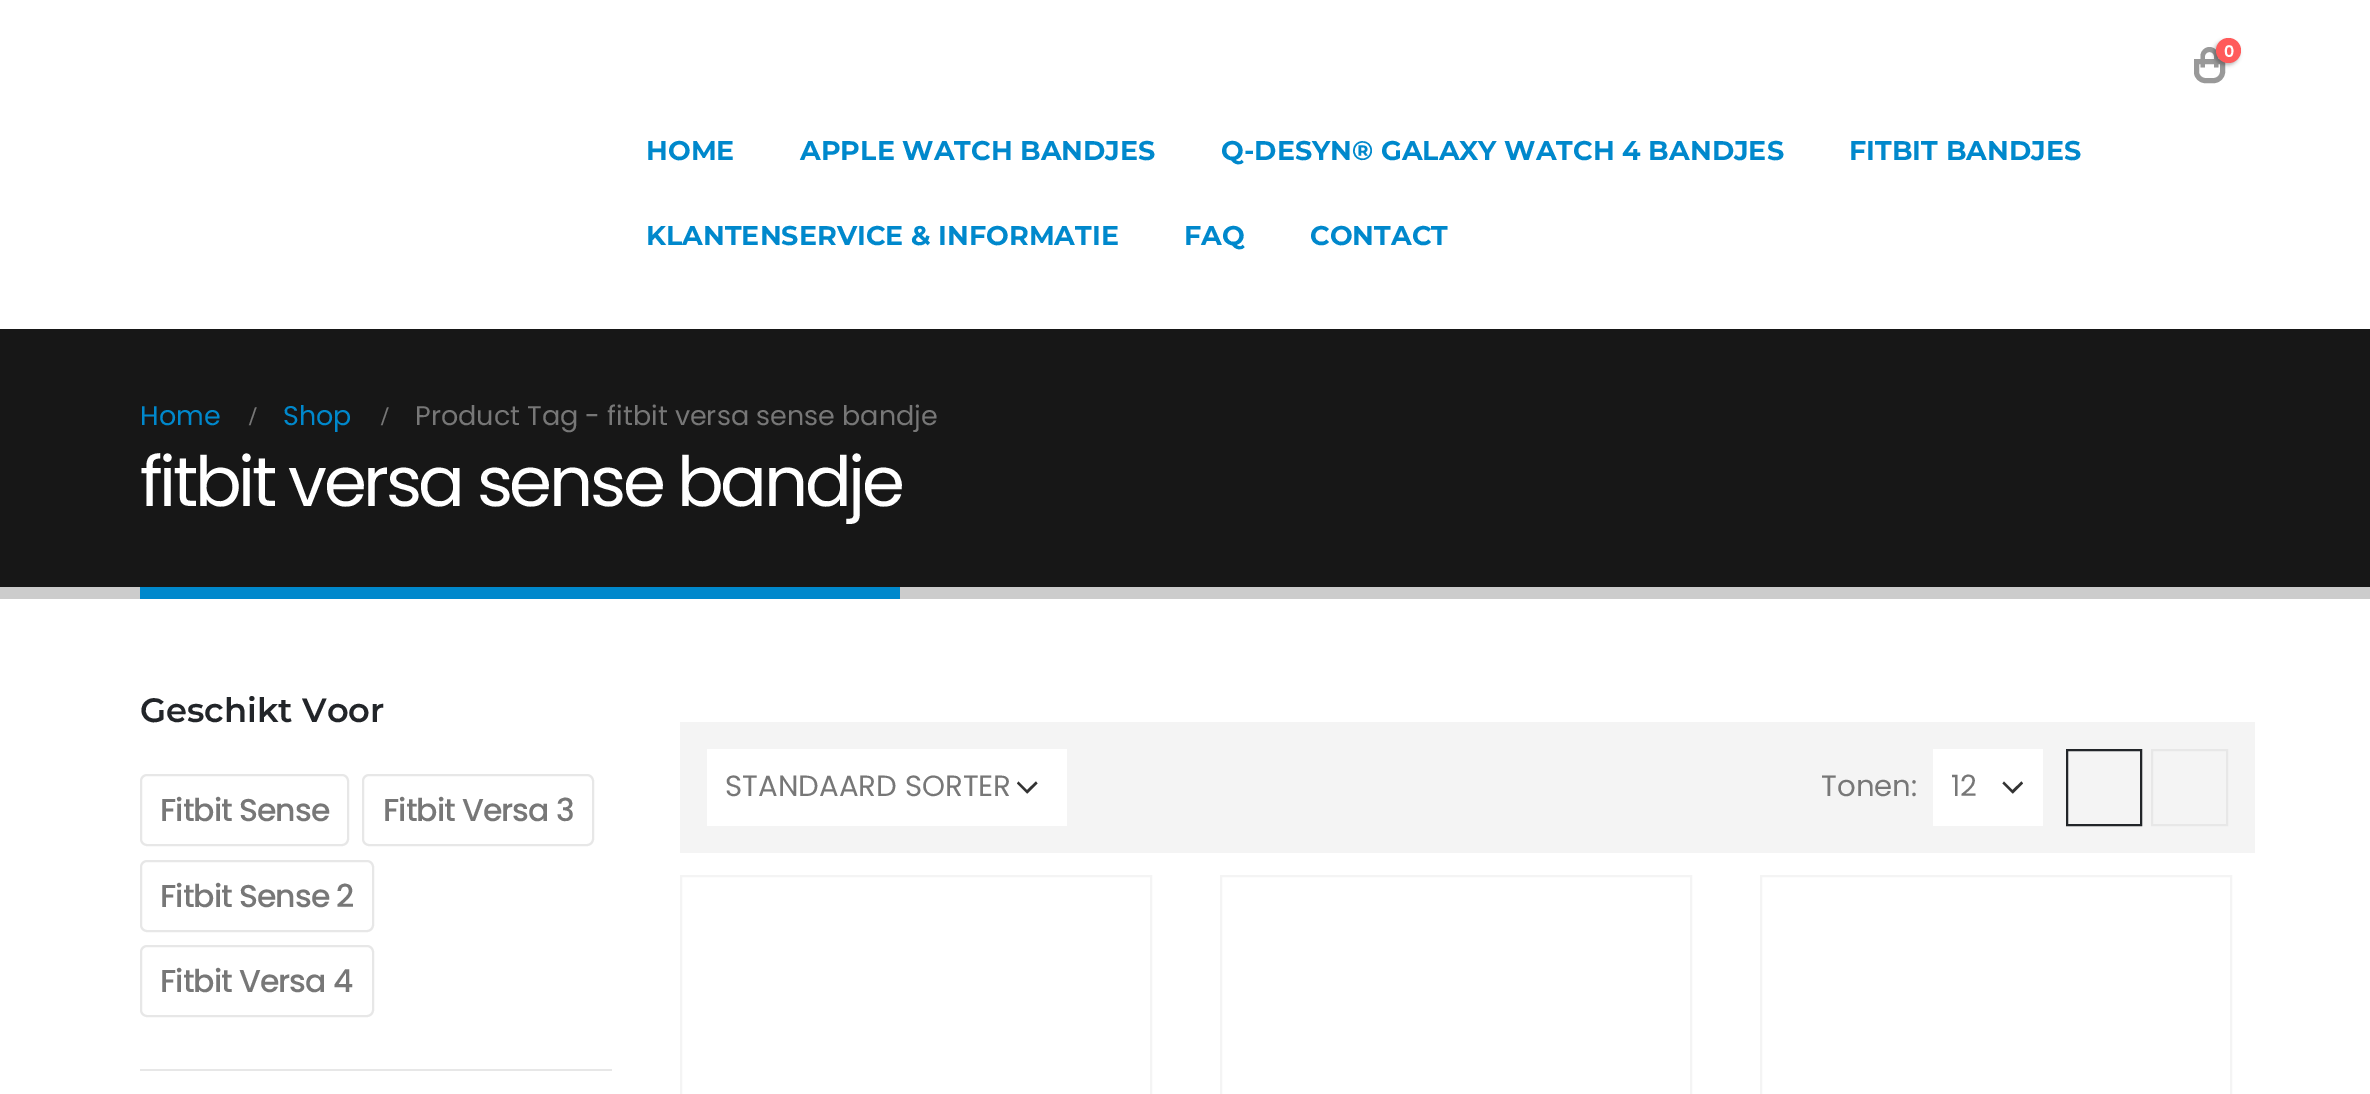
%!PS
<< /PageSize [2370 1094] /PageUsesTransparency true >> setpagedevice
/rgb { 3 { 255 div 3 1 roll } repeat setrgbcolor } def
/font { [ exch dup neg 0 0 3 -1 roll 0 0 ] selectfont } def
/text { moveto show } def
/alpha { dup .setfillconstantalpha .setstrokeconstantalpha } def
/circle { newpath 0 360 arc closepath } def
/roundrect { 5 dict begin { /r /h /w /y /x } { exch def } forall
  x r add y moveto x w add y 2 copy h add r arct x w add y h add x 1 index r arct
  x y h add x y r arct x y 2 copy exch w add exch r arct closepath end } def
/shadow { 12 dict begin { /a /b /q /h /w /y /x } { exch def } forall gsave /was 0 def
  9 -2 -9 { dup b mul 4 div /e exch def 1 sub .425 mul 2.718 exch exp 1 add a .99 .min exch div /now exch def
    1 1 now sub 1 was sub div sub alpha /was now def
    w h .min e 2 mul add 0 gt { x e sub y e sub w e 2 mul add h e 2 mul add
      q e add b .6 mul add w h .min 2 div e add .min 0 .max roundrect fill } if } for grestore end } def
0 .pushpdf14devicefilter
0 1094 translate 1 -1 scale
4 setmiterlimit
255 255 255 rgb
0 0 2370 1094 rectfill
153 153 153 rgb
5 setlinewidth
2196.5 61.5 moveto 26 0 rlineto 0 10.5 rlineto 0 4.5 -4 8.5 -8.5 8.5 rcurveto -9 0 rlineto -4.5 0 -8.5 -4 -8.5 -8.5 rcurveto closepath stroke
2209.5 47 moveto 5 0 9 4.5 9 9 rcurveto 0 11.5 rlineto -18 0 rlineto 0 -11.5 rlineto 0 -4.5 4 -9 9 -9 rcurveto closepath 2209.5 52 moveto 2.5 0 4.5 2 4.5 4 rcurveto 0 11.5 rlineto -9 0 rlineto 0 -11.5 rlineto 0 -2 2 -4 4.5 -4 rcurveto closepath eofill
0 0 0 rgb
2214 41 25 24 12 2 0.3 shadow
255 91 91 rgb
2228.5 50.5 12.5 circle fill
23 23 23 rgb
0 329 2370 258 rectfill
204 204 204 rgb
0 587 2370 12 rectfill
0 136 204 rgb
140 587 760 12 rectfill
231 231 231 rgb
140 1069 472 2 rectfill
2 setlinewidth
141 775 207 70 6 roundrect stroke
363 775 230 70 6 roundrect stroke
141 861 232 70 6 roundrect stroke
141 946 232 70 6 roundrect stroke
244 244 244 rgb
680 722 1575 131 rectfill
255 255 255 rgb
707 749 360 77 rectfill
51 51 51 rgb
1027.5 793.5 moveto 10 -10 rlineto -1.5 -2 rlineto -9 8.5 rlineto -8.5 -8.5 rlineto -1.5 2 rlineto 10 10 rlineto closepath eofill
255 255 255 rgb
1933 749 110 77 rectfill
51 51 51 rgb
2013 793.5 moveto 10 -10 rlineto -1.5 -2 rlineto -9 8.5 rlineto -8.5 -8.5 rlineto -1.5 2 rlineto 10 10 rlineto closepath eofill
34 37 41 rgb
2067 750 74 75 rectstroke
231 231 231 rgb
2152 750 75 75 rectstroke
244 244 244 rgb
681 876 470 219 rectstroke
1221 876 470 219 rectstroke
1761 876 470 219 rectstroke
/Poppins-SemiBold 16 font
255 255 255 rgb
(0) 2224 57 text
/Montserrat-Bold 27 font
0 136 204 rgb
(HOME) 646 160 text
(APPLE WATCH BANDJES) 800 160 text
(Q-DESYN® GALAXY WATCH 4 BANDJES) 1221 160 text
(FITBIT BANDJES) 1849 160 text
(KLANTENSERVICE & INFORMATIE) 646 245 text
(FAQ) 1184 245 text
(CONTACT) 1310 245 text
/Poppins-Regular 27 font
(Home) 140 425 text
/LiberationSerif-Bold 27 font
119 119 119 rgb
(/) 249 425 text
/Poppins-Regular 27 font
0 136 204 rgb
(Shop) 283 425 text
/LiberationSerif-Bold 27 font
119 119 119 rgb
(/) 381 425 text
/Poppins-Regular 27 font
(Product Tag - fitbit versa sense bandje) 415 425 text
/Poppins-Regular 69.25 font
255 255 255 rgb
140 506 moveto -3.45 0 (fitbit versa sense bandje) ashow
/Montserrat-SemiBold 33.75 font
34 37 41 rgb
(Geschikt Voor) 140 722 text
/Poppins-Medium 31.5 font
119 119 119 rgb
160 821 moveto -1 0 (Fitbit Sense) ashow
383 821 moveto -1 0 (Fitbit Versa 3) ashow
160 907 moveto -1 0 (Fitbit Sense 2) ashow
160 992 moveto -1 0 (Fitbit Versa 4) ashow
/Poppins-Regular 29.25 font
(STANDAARD SORTER) 725 796 text
(Tonen:) 1821 796 text
(12) 1951 796 text
.poppdf14devicefilter showpage
